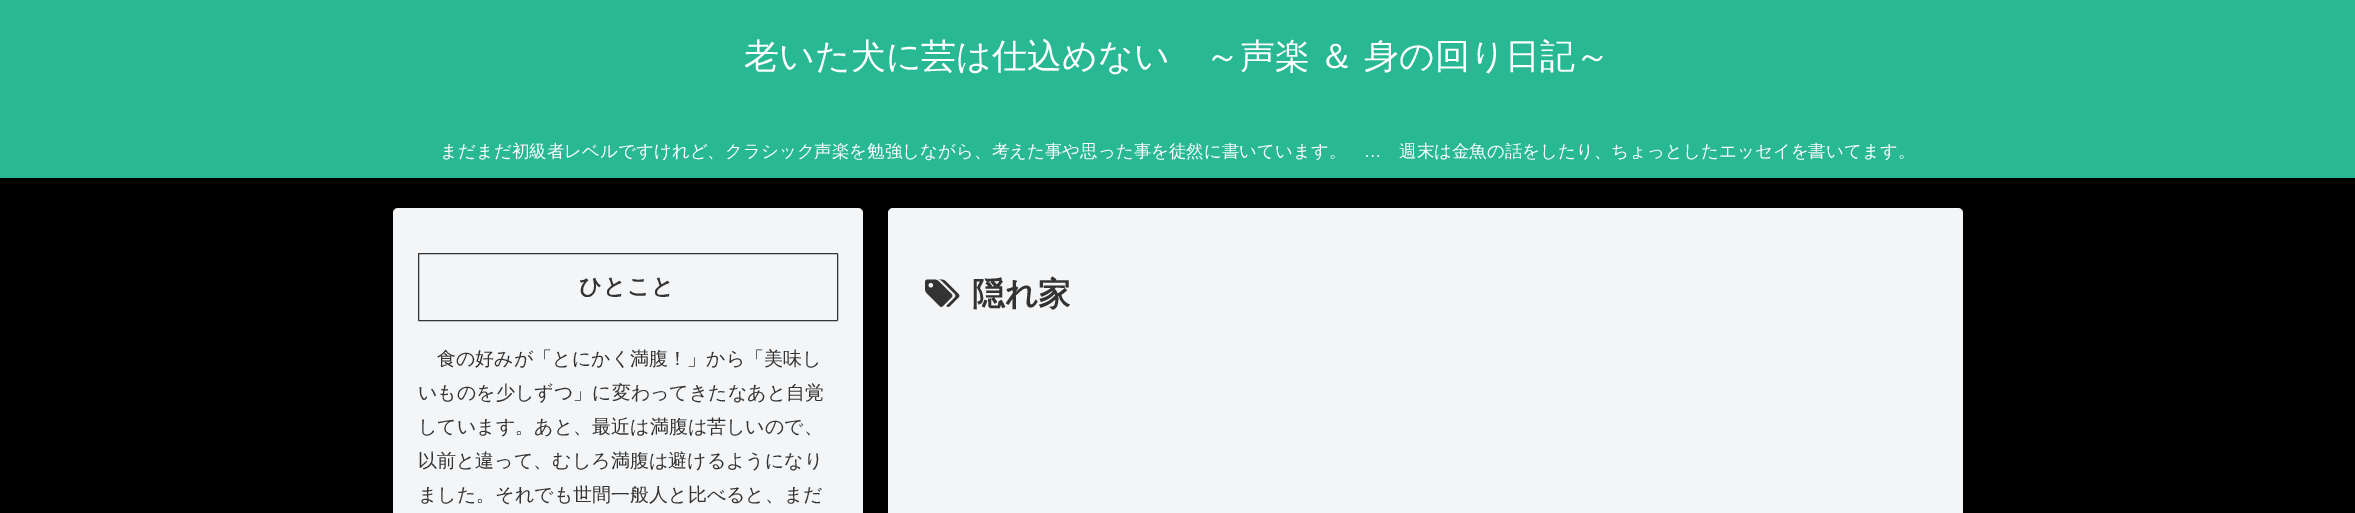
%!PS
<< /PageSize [2355 513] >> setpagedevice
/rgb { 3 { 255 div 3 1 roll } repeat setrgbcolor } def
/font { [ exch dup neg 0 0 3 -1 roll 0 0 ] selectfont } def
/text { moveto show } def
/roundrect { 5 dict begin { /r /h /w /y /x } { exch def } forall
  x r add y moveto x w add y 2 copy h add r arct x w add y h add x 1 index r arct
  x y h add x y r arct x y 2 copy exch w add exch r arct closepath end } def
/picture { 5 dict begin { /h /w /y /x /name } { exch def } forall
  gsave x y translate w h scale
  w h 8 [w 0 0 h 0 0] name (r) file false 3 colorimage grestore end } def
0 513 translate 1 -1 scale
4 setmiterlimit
0 0 0 rgb
0 0 2355 513 rectfill
40 184 147 rgb
0 0 2355 178 rectfill
244 245 247 rgb
393 208 470 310 5 roundrect fill
51 51 51 rgb
418.5 253.5 419 67 0.5 roundrect stroke
244 245 247 rgb
888 208 1075 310 5 roundrect fill
(img_01.rgb) 925 279 35 28 picture
/WenQuanYiZenHei-Medium 35 font
255 255 255 rgb
744 68 moveto -1 0 32 (老いた犬に芸は仕込めない　～声楽 ＆ 身の回り日記～) widthshow
/WenQuanYiZenHei-Medium 17.5 font
(まだまだ初級者レベルですけれど、クラシック声楽を勉強しながら、考えた事や思った事を徒然に書いています。) 440 157 text
/LiberationSans-Regular 17.5 font
(…) 1364 157 text
/WenQuanYiZenHei-Medium 17.5 font
(週末は金魚の話をしたり、ちょっとしたエッセイを書いてます。) 1399 157 text
/WenQuanYiZenHei-Bold 22.5 font
51 51 51 rgb
579 294 moveto 1 0 (ひとこと) ashow
/WenQuanYiZenHei-Medium 19 font
(食の好みが「とにかく満腹！」から「美味し) 437 365 text
(いものを少しずつ」に変わってきたなあと自覚) 418 399 text
(しています。あと、最近は満腹は苦しいので、) 418 433 text
(以前と違って、むしろ満腹は避けるようになり) 418 467 text
(ました。それでも世間一般人と比べると、まだ) 418 501 text
/WenQuanYiZenHei-Bold 32.5 font
(隠れ家) 972 305 text
showpage
